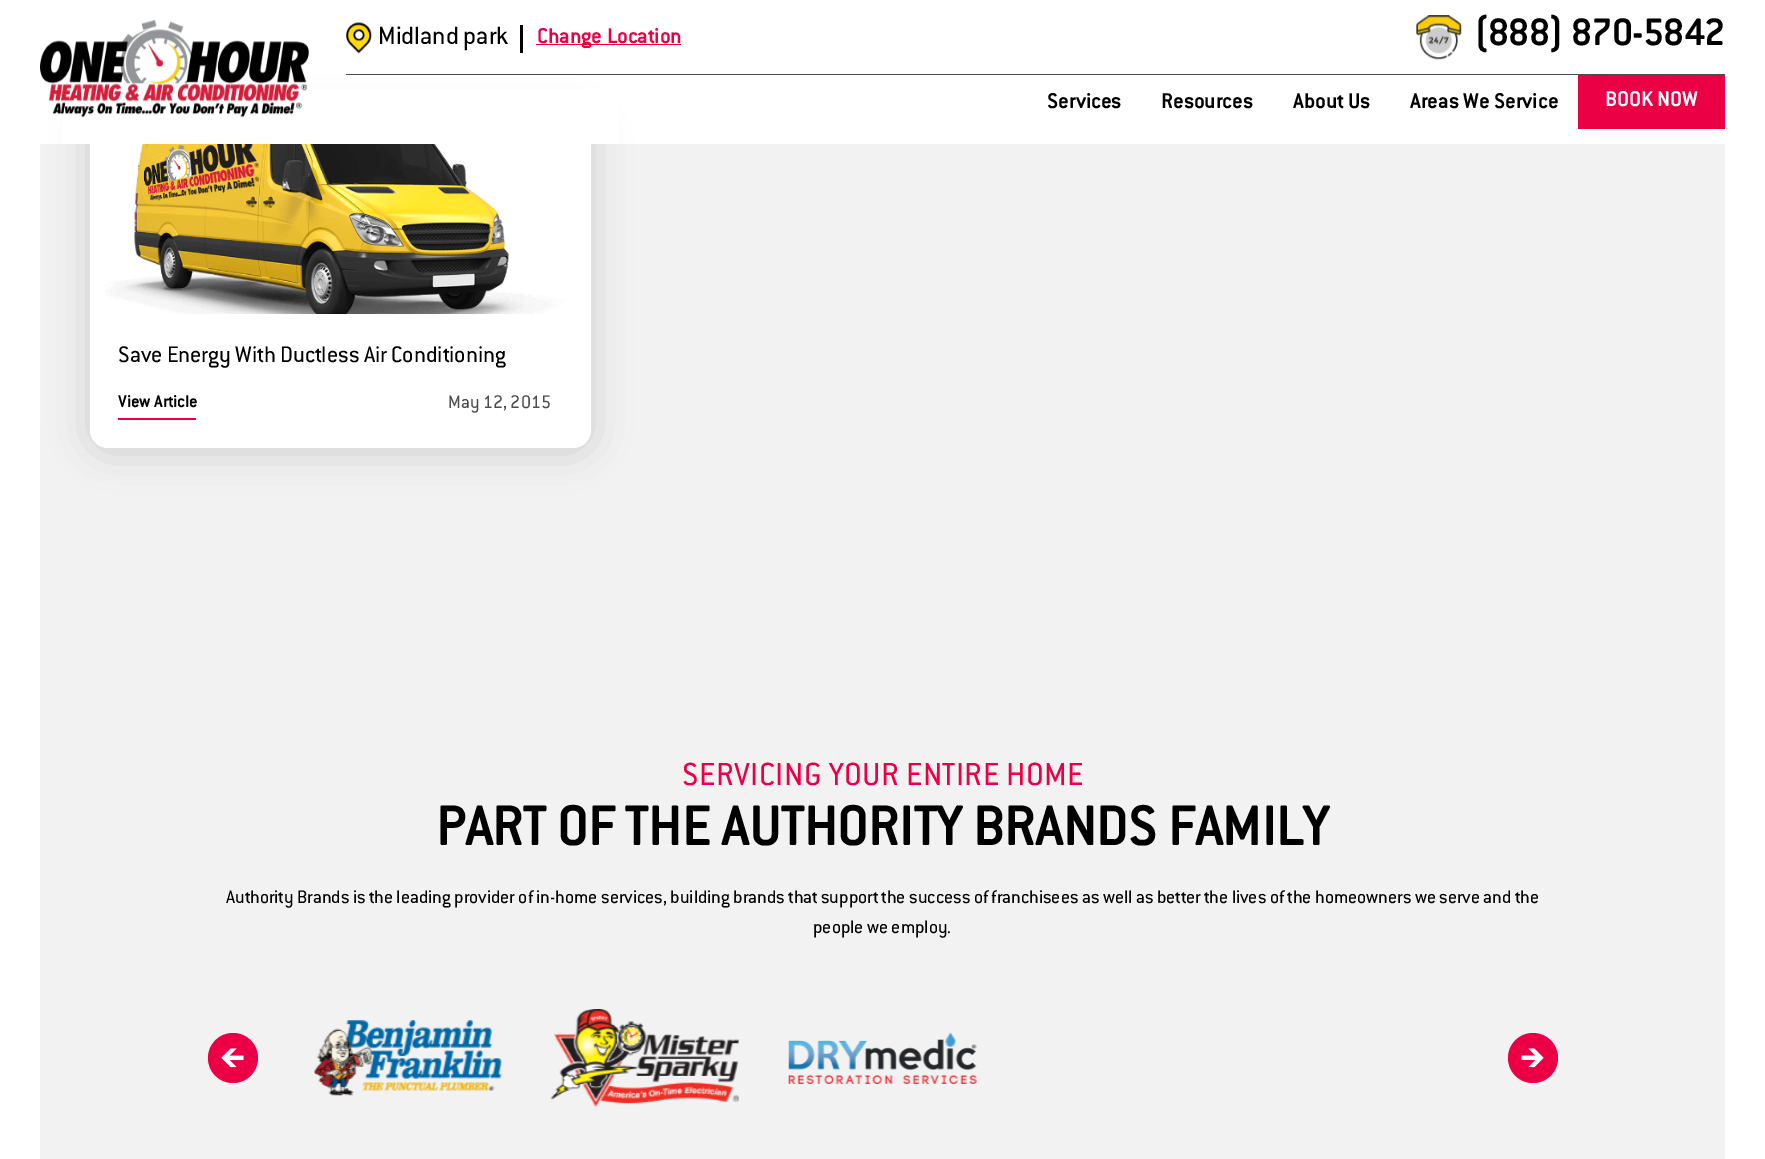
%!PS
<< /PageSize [1765 1159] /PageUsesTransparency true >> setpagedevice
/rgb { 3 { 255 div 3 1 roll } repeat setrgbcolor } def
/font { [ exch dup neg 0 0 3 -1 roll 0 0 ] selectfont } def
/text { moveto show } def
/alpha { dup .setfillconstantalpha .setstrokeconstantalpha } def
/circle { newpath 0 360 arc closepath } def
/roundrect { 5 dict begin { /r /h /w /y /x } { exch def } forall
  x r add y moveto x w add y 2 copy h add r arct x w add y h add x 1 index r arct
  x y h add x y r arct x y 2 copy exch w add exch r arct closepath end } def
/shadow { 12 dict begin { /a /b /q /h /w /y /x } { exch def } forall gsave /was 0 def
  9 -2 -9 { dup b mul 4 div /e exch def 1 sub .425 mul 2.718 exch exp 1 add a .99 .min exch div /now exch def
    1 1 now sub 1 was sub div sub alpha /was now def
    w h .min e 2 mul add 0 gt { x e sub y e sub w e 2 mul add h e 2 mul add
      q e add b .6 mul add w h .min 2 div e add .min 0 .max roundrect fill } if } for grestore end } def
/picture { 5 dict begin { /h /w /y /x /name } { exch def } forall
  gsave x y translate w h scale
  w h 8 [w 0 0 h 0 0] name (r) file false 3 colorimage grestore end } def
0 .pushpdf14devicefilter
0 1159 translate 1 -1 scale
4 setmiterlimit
255 255 255 rgb
0 0 1765 1159 rectfill
242 242 242 rgb
40 144 1685 1015 rectfill
0 0 0 rgb
90 118 501 333 18 19.5 0.15 shadow
255 255 255 rgb
90 114 501 334 18 roundrect fill
62 89 557 55 rectfill
(img_01.rgb) 40 20 269 98 picture
77 77 77 rgb
346 74 1379 1 rectfill
(img_02.rgb) 346 22 26 32 picture
0 0 0 rgb
520 25 3 28 rectfill
235 0 69 rgb
536 44 145 1 rectfill
(img_03.rgb) 1416 15 46 45 picture
1578 75 147 54 rectfill
(img_04.rgb) 105 144 462 170 picture
118 418 78 2 rectfill
233 1058 25 circle fill
(img_05.rgb) 221 1048 23 20 picture
(img_06.rgb) 314 1020 188 76 picture
(img_07.rgb) 550 1009 189 98 picture
(img_08.rgb) 788 1032 189 52 picture
1533 1058 25 circle fill
(img_09.rgb) 1521 1048 23 20 picture
/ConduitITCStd-Regular 27.5 font
0 0 0 rgb
(Midland park) 378 44 text
/ConduitITCStd-Bold 22.5 font
235 0 69 rgb
537 43 moveto 0.5 0 (Change Location) ashow
/ConduitITCStd-Bold 40 font
0 0 0 rgb
1474 45 moveto 0.4 0 (\(888\) 870-5842) ashow
/ConduitITCStd-Bold 22.5 font
1047 108 moveto 0.5 0 (Services) ashow
1161 108 moveto 0.5 0 (Resources) ashow
1293 108 moveto 0.5 0 (About Us) ashow
1410 108 moveto 0.5 0 (Areas We Service) ashow
255 255 255 rgb
1605 106 moveto 0.5 0 (BOOK NOW) ashow
/ConduitITCStd-Regular 24.75 font
0 0 0 rgb
(Save Energy With Ductless Air Conditioning) 118 362 text
/ConduitITCStd-Bold 18 font
118 407 moveto 0.4 0 (View Article) ashow
/ConduitITCStd-Regular 20 font
77 77 77 rgb
(May 12, 2015) 448 408 text
/ConduitITCStd-Regular 35 font
235 0 69 rgb
682 785 moveto 0.55 0 (SERVICING YOUR ENTIRE HOME) ashow
/ConduitITCStd-Bold 60 font
0 0 0 rgb
436 845 moveto 0.6 0 (PART OF THE AUTHORITY BRANDS FAMILY) ashow
/ConduitITCStd-Regular 20 font
(Authority Brands is the leading provider of in-home services, building brands that support the success of franchisees as well as better the lives of the homeowners we serve and the) 226 903 text
(people we employ.) 813 933 text
.poppdf14devicefilter showpage
